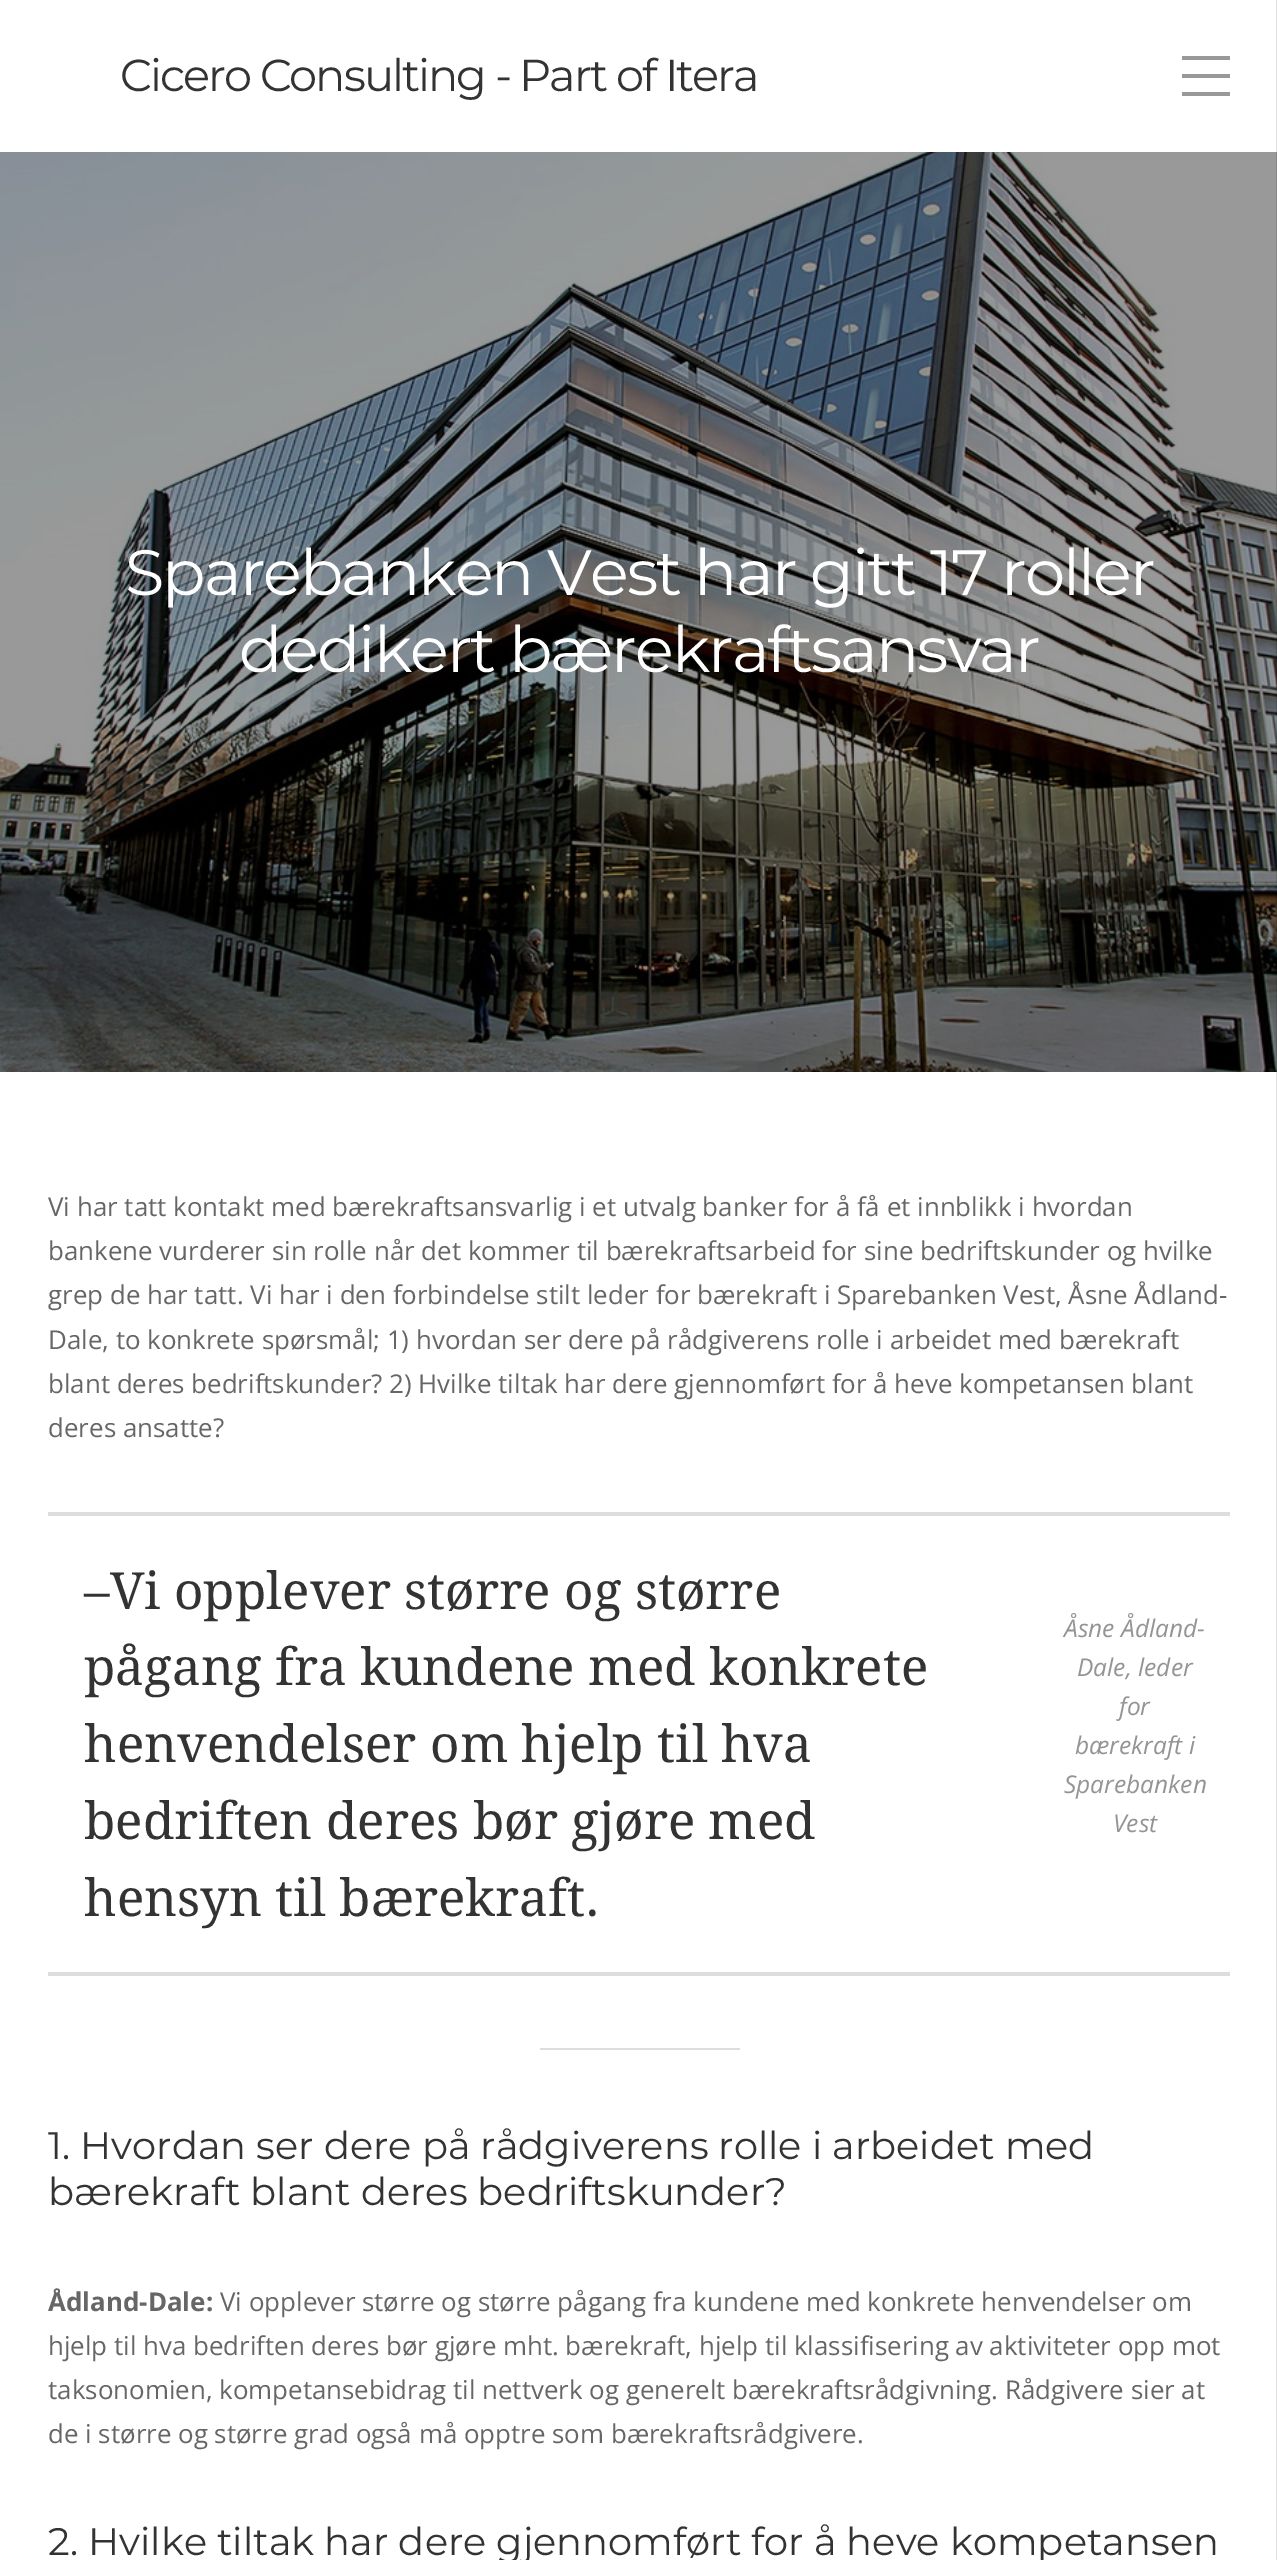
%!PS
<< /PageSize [1277 2560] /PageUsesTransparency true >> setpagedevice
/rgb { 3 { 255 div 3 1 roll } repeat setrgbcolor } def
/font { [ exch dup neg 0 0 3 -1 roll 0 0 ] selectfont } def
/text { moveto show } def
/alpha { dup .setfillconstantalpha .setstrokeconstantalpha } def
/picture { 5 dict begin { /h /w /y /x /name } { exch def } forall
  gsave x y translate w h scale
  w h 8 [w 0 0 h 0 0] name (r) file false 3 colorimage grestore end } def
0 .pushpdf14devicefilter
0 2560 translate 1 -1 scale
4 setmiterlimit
255 255 255 rgb
0 0 1277 2560 rectfill
153 153 153 rgb
1182 56 48 4 rectfill
1182 74 48 4 rectfill
1182 92 48 4 rectfill
(img_01.rgb) 0 152 1277 920 picture
221 221 221 rgb
48 1512 1182 4 rectfill
48 1972 1182 4 rectfill
540 2048 200 2 rectfill
0.12 alpha
0 0 0 rgb
1276 0 1 2560 rectfill
/Montserrat-Regular 44.75 font
1 alpha
51 51 51 rgb
120 91 moveto -2 0 (Cicero Consulting - Part of Itera) ashow
/Montserrat-Regular 64 font
255 255 255 rgb
125 595 moveto -2 0 (Sparebanken Vest har gitt 17 roller) ashow
239 672 moveto -2 0 (dedikert bærekraftsansvar) ashow
/OpenSans-Regular 25.9 font
102 102 102 rgb
(Vi har tatt kontakt med bærekraftsansvarlig i et utvalg banker for å få et innblikk i hvordan) 48 1216 text
(bankene vurderer sin rolle når det kommer til bærekraftsarbeid for sine bedriftskunder og hvilke) 48 1260 text
(grep de har tatt. Vi har i den forbindelse stilt leder for bærekraft i Sparebanken Vest, Åsne Ådland-) 48 1304 text
(Dale, to konkrete spørsmål; 1\) hvordan ser dere på rådgiverens rolle i arbeidet med bærekraft) 48 1349 text
(blant deres bedriftskunder? 2\) Hvilke tiltak har dere gjennomført for å heve kompetansen blant) 48 1393 text
(deres ansatte?) 48 1437 text
/DroidSerif-Regular 51.25 font
51 51 51 rgb
(–Vi opplever større og større) 84 1609 text
(pågang fra kundene med konkrete) 84 1685 text
(henvendelser om hjelp til hva) 84 1762 text
(bedriften deres bør gjøre med) 84 1839 text
(hensyn til bærekraft.) 84 1916 text
/OpenSans-Italic 24.5 font
148 148 148 rgb
(Åsne Ådland-) 1064 1637 text
(Dale, leder) 1077 1676 text
(for) 1119 1715 text
(bærekraft i) 1075 1754 text
(Sparebanken) 1064 1793 text
(Vest) 1113 1832 text
/Montserrat-Regular 38.4 font
51 51 51 rgb
(1. Hvordan ser dere på rådgiverens rolle i arbeidet med) 48 2159 text
(bærekraft blant deres bedriftskunder?) 48 2205 text
/OpenSans-Bold 25.9 font
102 102 102 rgb
(Ådland-Dale:) 48 2311 text
/OpenSans-Regular 25.9 font
(Vi opplever større og større pågang fra kundene med konkrete henvendelser om) 220 2311 text
(hjelp til hva bedriften deres bør gjøre mht. bærekraft, hjelp til klassifisering av aktiviteter opp mot) 48 2355 text
(taksonomien, kompetansebidrag til nettverk og generelt bærekraftsrådgivning. Rådgivere sier at) 48 2399 text
(de i større og større grad også må opptre som bærekraftsrådgivere.) 48 2443 text
/Montserrat-Regular 38.4 font
51 51 51 rgb
(2. Hvilke tiltak har dere gjennomført for å heve kompetansen) 48 2555 text
.poppdf14devicefilter showpage
